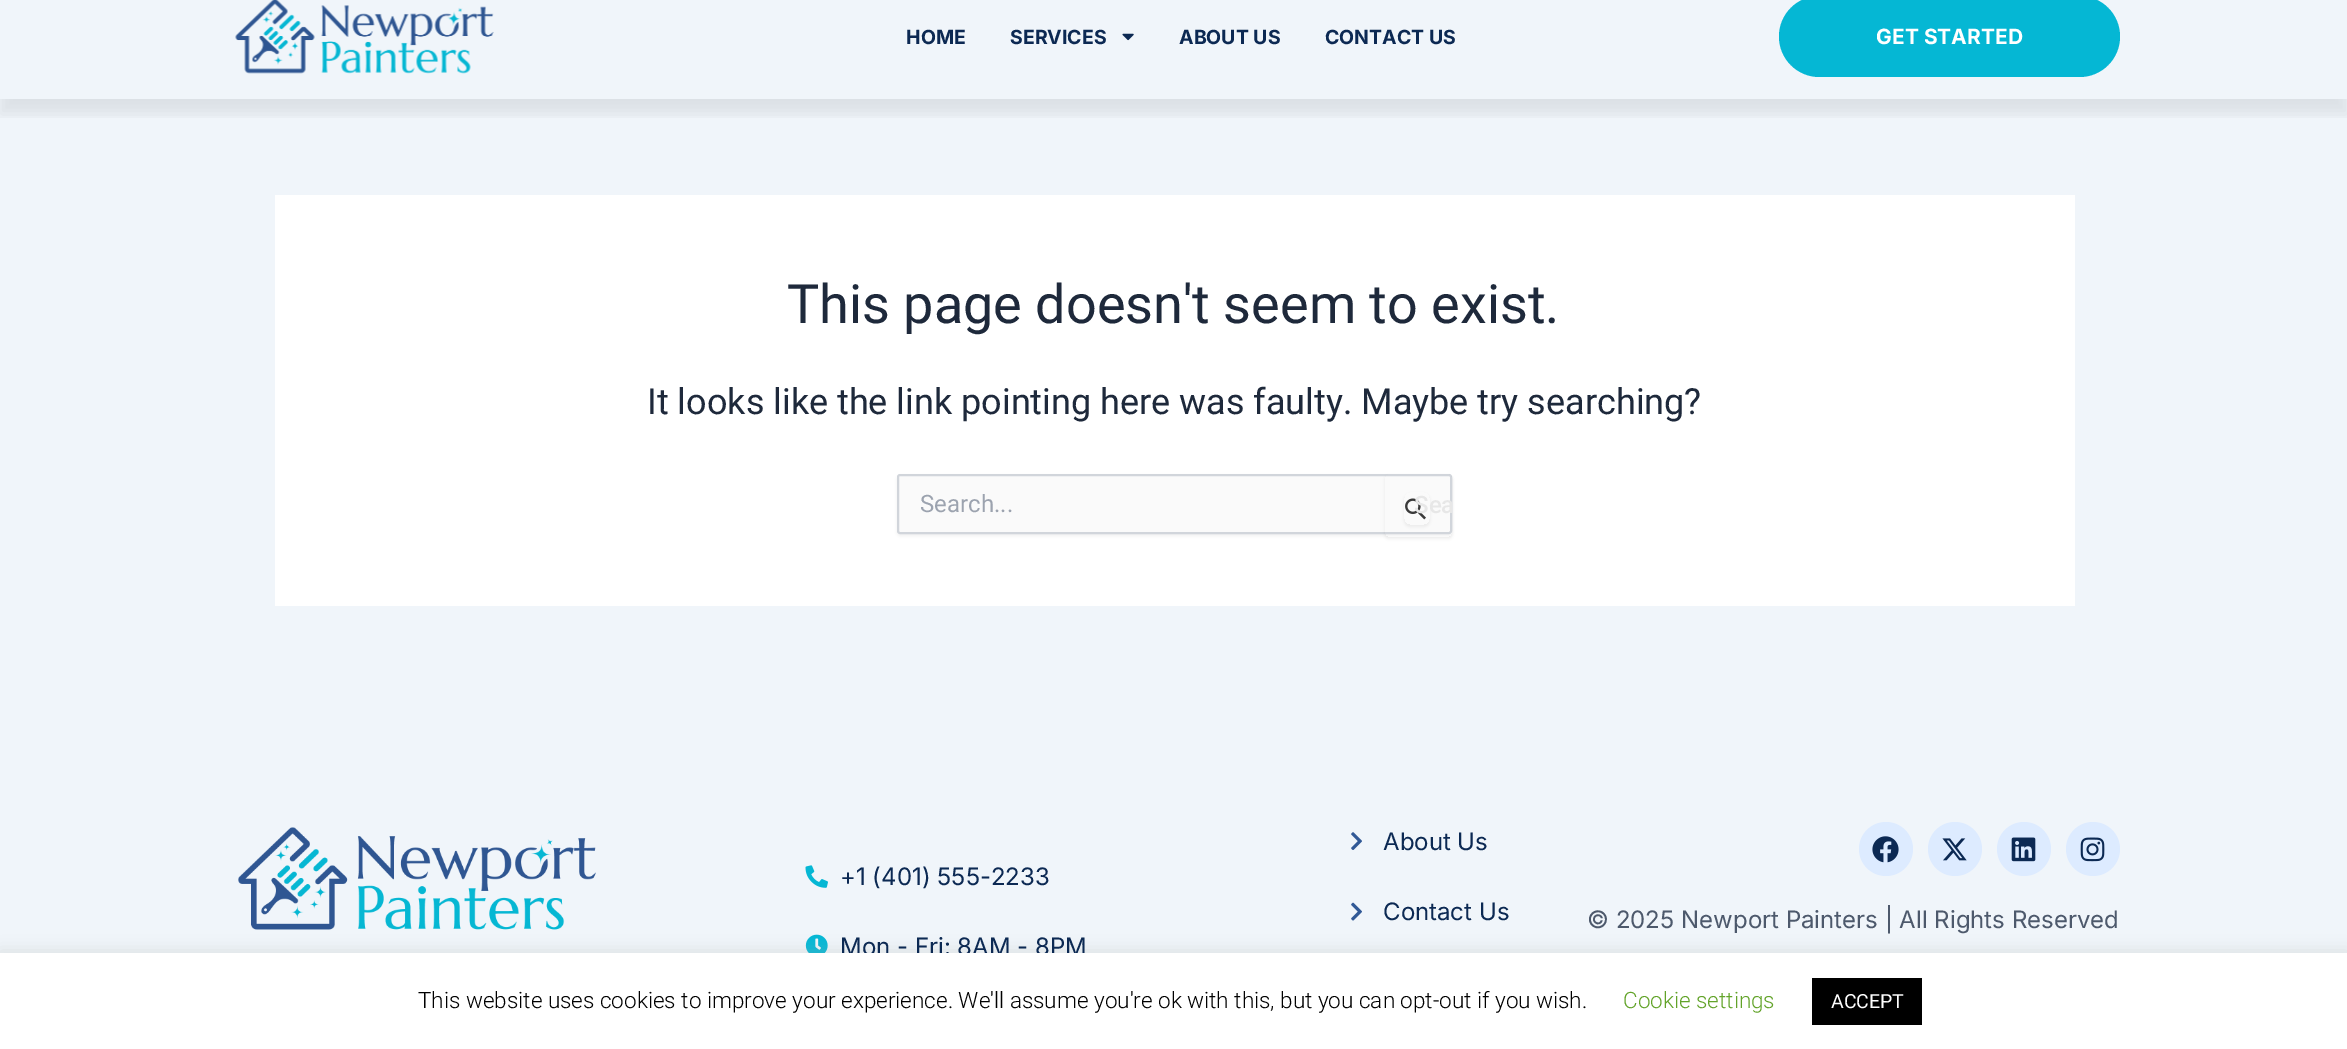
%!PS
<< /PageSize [2347 1049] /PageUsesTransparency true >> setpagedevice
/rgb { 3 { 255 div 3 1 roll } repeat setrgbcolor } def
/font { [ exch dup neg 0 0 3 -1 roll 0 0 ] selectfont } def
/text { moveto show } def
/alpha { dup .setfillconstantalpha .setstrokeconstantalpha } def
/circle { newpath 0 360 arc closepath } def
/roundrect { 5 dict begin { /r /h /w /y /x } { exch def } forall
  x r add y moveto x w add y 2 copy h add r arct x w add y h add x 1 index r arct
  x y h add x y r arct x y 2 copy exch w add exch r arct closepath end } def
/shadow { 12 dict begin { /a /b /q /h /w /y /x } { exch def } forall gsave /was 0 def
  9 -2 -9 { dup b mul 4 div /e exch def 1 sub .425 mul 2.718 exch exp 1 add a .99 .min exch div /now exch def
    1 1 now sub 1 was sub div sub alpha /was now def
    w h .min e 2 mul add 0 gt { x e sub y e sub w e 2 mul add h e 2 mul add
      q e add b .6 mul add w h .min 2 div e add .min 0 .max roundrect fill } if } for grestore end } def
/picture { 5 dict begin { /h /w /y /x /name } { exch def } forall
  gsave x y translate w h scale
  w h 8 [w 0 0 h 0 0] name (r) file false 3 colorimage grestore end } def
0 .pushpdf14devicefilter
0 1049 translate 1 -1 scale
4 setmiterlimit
240 245 250 rgb
0 0 2347 1049 rectfill
gsave
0 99 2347 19 rectclip
0 0 0 rgb
0 -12 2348 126 0 7.5 0.07 shadow
grestore
(img_01.rgb) 235 0 259 74 picture
(img_02.rgb) 1122 33 12 8 picture
5 183 212 rgb
1779 -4 341 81 40.5 roundrect fill
255 255 255 rgb
275 195 1800 411 rectfill
0 0 0 rgb
897 476 555 60 3 1.5 0.05 shadow
250 250 250 rgb
898 475 553 58 2 roundrect gsave fill grestore
209 213 219 rgb
2 setlinewidth
stroke
gsave
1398 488 moveto 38 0 rlineto 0 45 rlineto -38 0 rlineto closepath 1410 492 moveto 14 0 rlineto 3.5 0 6 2.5 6 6 rcurveto 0 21 rlineto 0 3.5 -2.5 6 -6 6 rcurveto -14 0 rlineto -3.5 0 -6 -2.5 -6 -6 rcurveto 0 -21 rlineto 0 -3.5 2.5 -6 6 -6 rcurveto closepath eoclip newpath
0 0 0 rgb
1404 494 26 33 6 1.5 0.05 shadow
grestore
(img_03.rgb) 1405 498 21 22 picture
gsave
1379 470 moveto 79 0 rlineto 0 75 rlineto -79 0 rlineto closepath 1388 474 moveto 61 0 rlineto 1.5 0 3 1.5 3 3 rcurveto 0 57 rlineto 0 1.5 -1.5 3 -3 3 rcurveto -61 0 rlineto -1.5 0 -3 -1.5 -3 -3 rcurveto 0 -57 rlineto 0 -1.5 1.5 -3 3 -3 rcurveto closepath eoclip newpath
0 0 0 rgb
1385 476 67 63 3 1.5 0.05 shadow
grestore
(img_04.rgb) 238 827 358 103 picture
(img_05.rgb) 805 865 23 23 picture
(img_06.rgb) 805 934 23 19 picture
(img_07.rgb) 1351 832 11 18 picture
(img_08.rgb) 1351 902 11 19 picture
221 235 255 rgb
1886 849 27 circle fill
(img_09.rgb) 1872 836 27 27 picture
1955 849 27 circle fill
(img_10.rgb) 1942 838 25 23 picture
2024 849 27 circle fill
(img_11.rgb) 2011 837 25 25 picture
2093 849 27 circle fill
(img_12.rgb) 2080 837 25 25 picture
172 171 171 rgb
0 951 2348 98 0 7.5 0.3 shadow
/Inter-Bold 19.5 font
12 41 83 rgb
(HOME) 906 44 text
(SERVICES) 1010 44 text
(ABOUT US) 1179 44 text
(CONTACT US) 1325 44 text
/Inter-Bold 21 font
255 255 255 rgb
(GET STARTED) 1876 44 text
/Roboto-Regular 54 font
30 41 59 rgb
(This page doesn't seem to exist.) 787 323 text
/Roboto-Regular 36 font
(It looks like the link pointing here was faulty. Maybe try searching?) 647 414 text
/Roboto-Regular 24 font
156 163 175 rgb
(Search...) 920 512 text
gsave
1385 474 67 63 3 roundrect clip newpath
/Roboto-Medium 24 font
231 231 231 rgb
(Sea) 1414 513 text
grestore
/Inter-Regular 24 font
12 41 83 rgb
(+1 \(401\) 555-2233) 840 885 text
(Mon - Fri: 8AM - 8PM) 840 955 text
(About Us) 1383 850 text
(Contact Us) 1383 920 text
77 89 108 rgb
(© 2025 Newport Painters | All Rights Reserved) 1587 928 text
255 255 255 rgb
0 953 2347 96 rectfill
/Roboto-Light 22.5 font
0 0 0 rgb
(This website uses cookies to improve your experience. We'll assume you're ok with this, but you can opt-out if you wish.) 418 1008 text
98 163 41 rgb
(Cookie settings) 1623 1008 text
0 0 0 rgb
1812 978 110 47 rectfill
/Roboto-Regular 19.5 font
255 255 255 rgb
(ACCEPT) 1831 1008 text
.poppdf14devicefilter showpage
